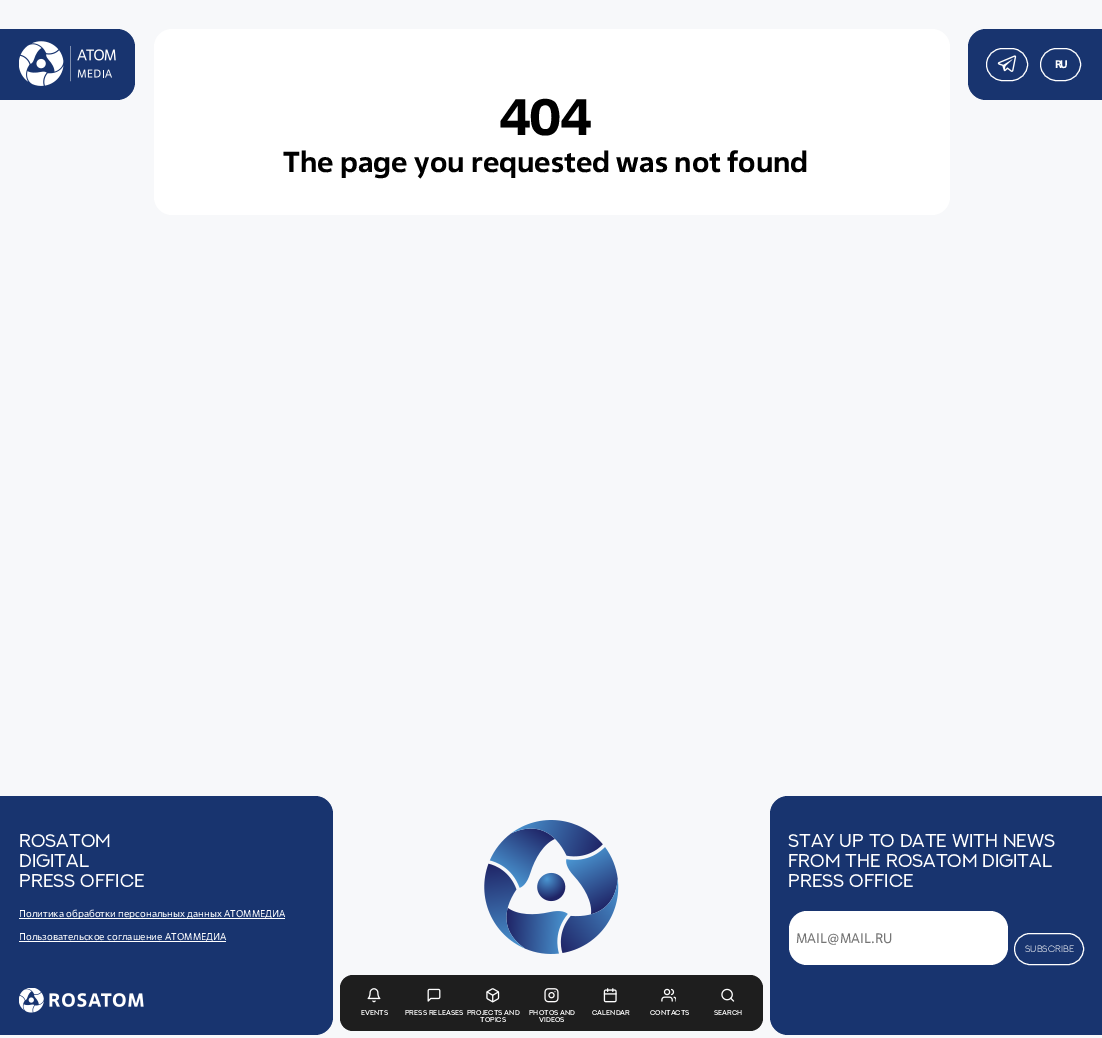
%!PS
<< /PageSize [1102 1038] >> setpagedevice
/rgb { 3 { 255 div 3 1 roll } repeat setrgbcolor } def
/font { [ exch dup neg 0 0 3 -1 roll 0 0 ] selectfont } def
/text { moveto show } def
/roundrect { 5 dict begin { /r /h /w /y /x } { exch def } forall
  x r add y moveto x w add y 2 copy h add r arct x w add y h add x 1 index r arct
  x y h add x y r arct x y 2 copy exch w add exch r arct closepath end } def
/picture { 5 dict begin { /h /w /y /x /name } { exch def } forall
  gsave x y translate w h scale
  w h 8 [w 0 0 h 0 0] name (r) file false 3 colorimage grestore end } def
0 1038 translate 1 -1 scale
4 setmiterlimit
247 248 250 rgb
0 0 1102 1038 rectfill
24 52 111 rgb
0 29 moveto 117 0 rlineto 10 0 18 8 18 18 rcurveto 0 35 rlineto 0 10 -8 18 -18 18 rcurveto -117 0 rlineto closepath fill
(img_01.rgb) 19 41 97 45 picture
986 29 moveto 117 0 rlineto 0 71 rlineto -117 0 rlineto -10 0 -18 -8 -18 -18 rcurveto 0 -35 rlineto 0 -10 8 -18 18 -18 rcurveto closepath fill
255 255 255 rgb
986.5 48.5 41 32 16 roundrect stroke
(img_02.rgb) 997 55 20 17 picture
1040.5 48.5 40 32 16 roundrect stroke
154 29 796 186 18 roundrect fill
24 52 111 rgb
0 796 moveto 315 0 rlineto 10 0 18 8 18 18 rcurveto 0 203 rlineto 0 10 -8 18 -18 18 rcurveto -315 0 rlineto closepath fill
255 255 255 rgb
19 918 266 1 rectfill
19 941 207 1 rectfill
(img_03.rgb) 19 988 125 25 picture
(img_04.rgb) 484 820 135 134 picture
24 52 111 rgb
788 796 moveto 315 0 rlineto 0 239 rlineto -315 0 rlineto -10 0 -18 -8 -18 -18 rcurveto 0 -203 rlineto 0 -10 8 -18 18 -18 rcurveto closepath fill
255 255 255 rgb
789 911 219 54 18 roundrect fill
1014.5 933.5 69 31 15.5 roundrect stroke
30 30 30 rgb
340 975 423 56 13 roundrect fill
(img_05.rgb) 367 988 14 15 picture
(img_06.rgb) 427 988 14 14 picture
(img_07.rgb) 486 988 14 15 picture
(img_08.rgb) 544 988 15 15 picture
(img_09.rgb) 603 988 14 15 picture
(img_10.rgb) 661 988 15 14 picture
(img_11.rgb) 721 988 14 14 picture
/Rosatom-Bold 11 font
255 255 255 rgb
1055 68 moveto -2 0 (RU) ashow
/Rosatom-Bold 51 font
0 0 0 rgb
(404) 500 135 text
/Rosatom-Bold 28.75 font
(The page you requested was not found) 283 172 text
/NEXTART-Regular 18.4 font
255 255 255 rgb
(Rosatom) 19 847 text
(digital) 19 867 text
(press office) 19 887 text
/Rosatom-Regular 9.9 font
(Политика обработки персональных данных АТОММЕДИА) 19 917 text
(Пользовательское соглашение АТОММЕДИА) 19 940 text
/NEXTART-Regular 18.4 font
(Stay up to date with news) 788 847 text
(from the Rosatom digital) 788 867 text
(press office) 788 887 text
/Rosatom-Regular 13.75 font
117 117 117 rgb
(MAIL@MAIL.RU) 796 943 text
/NEXTART-Light 9.25 font
255 255 255 rgb
(subscribe) 1025 952 text
/NEXTART-SemiBold 7 font
(Events) 361 1015 text
(Press releases) 405 1015 text
(Projects and) 467 1015 text
(topics) 480 1022 text
(Photos and) 529 1015 text
(videos) 539 1022 text
(Calendar) 592 1015 text
(Contacts) 650 1015 text
(Search) 714 1015 text
showpage
